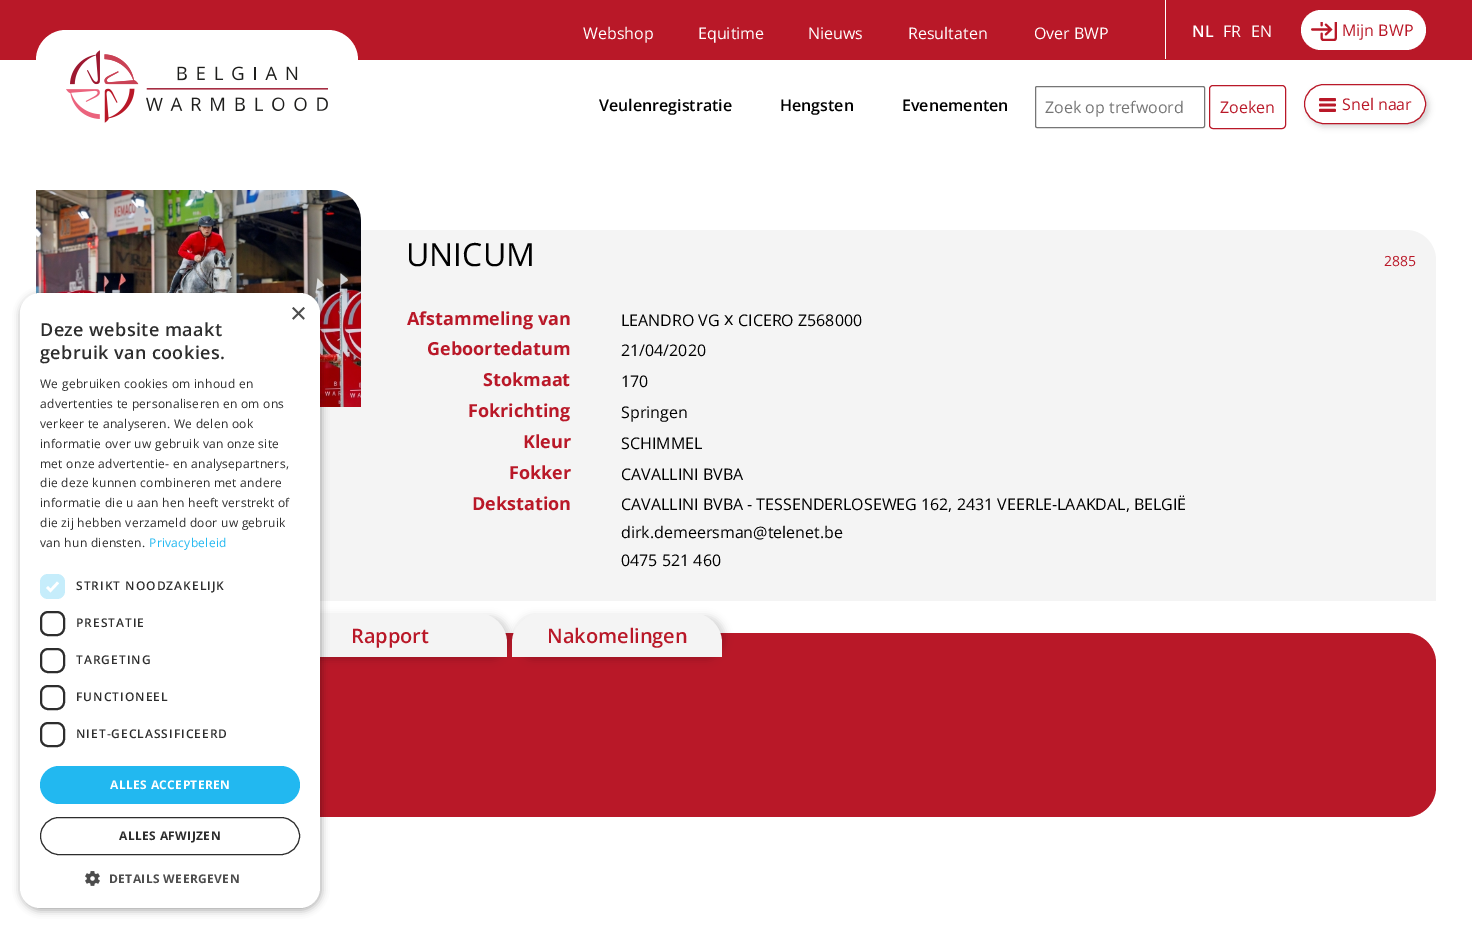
%!PS
<< /PageSize [1472 928] /PageUsesTransparency true >> setpagedevice
/rgb { 3 { 255 div 3 1 roll } repeat setrgbcolor } def
/font { [ exch dup neg 0 0 3 -1 roll 0 0 ] selectfont } def
/text { moveto show } def
/alpha { dup .setfillconstantalpha .setstrokeconstantalpha } def
/roundrect { 5 dict begin { /r /h /w /y /x } { exch def } forall
  x r add y moveto x w add y 2 copy h add r arct x w add y h add x 1 index r arct
  x y h add x y r arct x y 2 copy exch w add exch r arct closepath end } def
/shadow { 12 dict begin { /a /b /q /h /w /y /x } { exch def } forall gsave /was 0 def
  9 -2 -9 { dup b mul 4 div /e exch def 1 sub .425 mul 2.718 exch exp 1 add a .99 .min exch div /now exch def
    1 1 now sub 1 was sub div sub alpha /was now def
    w h .min e 2 mul add 0 gt { x e sub y e sub w e 2 mul add h e 2 mul add
      q e add b .6 mul add w h .min 2 div e add .min 0 .max roundrect fill } if } for grestore end } def
/picture { 5 dict begin { /h /w /y /x /name } { exch def } forall
  gsave x y translate w h scale
  w h 8 [w 0 0 h 0 0] name (r) file false 3 colorimage grestore end } def
0 .pushpdf14devicefilter
0 928 translate 1 -1 scale
4 setmiterlimit
255 255 255 rgb
0 0 1472 928 rectfill
244 244 244 rgb
36 230 moveto 1370 0 rlineto 16.5 0 30 13.5 30 30 rcurveto 0 341 rlineto -1400 0 rlineto closepath fill
(img_05.rgb) 36 190 325 217 picture
185 24 40 rgb
36 633 1400 184 30 roundrect fill
0 0 0 rgb
277 616 233 44 30 4 0.16 shadow
244 244 244 rgb
304 613 moveto 173 0 rlineto 16.5 0 30 13.5 30 30 rcurveto 0 14 rlineto -233 0 rlineto 0 -14 rlineto 0 -16.5 13.5 -30 30 -30 rcurveto closepath fill
0 0 0 rgb
21 295 300 615 20 4 0.35 shadow
255 255 255 rgb
20 293 300 615 20 roundrect fill
198 237 251 rgb
40 574 25 25 8 roundrect fill
255 255 255 rgb
2.6 setlinewidth
47 587 moveto 3.5 3.5 rlineto 7.5 -8 rlineto stroke
45 45 45 rgb
2 setlinewidth
41 612 23 23 7 roundrect stroke
41 649 23 23 7 roundrect stroke
41 686 23 23 7 roundrect stroke
41 723 23 23 7 roundrect stroke
34 184 240 rgb
40 766 260 38 19 roundrect fill
45 45 45 rgb
1 setlinewidth
40.5 817.5 259 37 18.5 roundrect stroke
(img_01.rgb) 85 871 15 15 picture
185 24 40 rgb
0 0 1472 60 rectfill
255 255 255 rgb
1165 0 1 59 rectfill
1301 10 125 40 20 roundrect fill
(img_02.rgb) 1311 22 26 19 picture
36 30 322 119 30 roundrect fill
(img_03.rgb) 66 50 262 73 picture
118 118 118 rgb
1035.5 86.5 169 41 1.5 roundrect stroke
185 24 40 rgb
1209.5 85.5 76 43 3.5 roundrect stroke
gsave
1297 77 moveto 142 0 rlineto 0 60 rlineto -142 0 rlineto closepath 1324 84 moveto 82 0 rlineto 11 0 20 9 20 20 rcurveto 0 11 -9 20 -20 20 rcurveto -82 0 rlineto -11 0 -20 -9 -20 -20 rcurveto 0 -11 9 -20 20 -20 rcurveto closepath eoclip newpath
0 0 0 rgb
1307 87 122 40 20 3 0.16 shadow
grestore
1304.5 84.5 121 39 19.5 roundrect stroke
(img_04.rgb) 1319 98 17 14 picture
0 0 0 rgb
515 616 210 44 30 4 0.16 shadow
244 244 244 rgb
542 613 moveto 150 0 rlineto 16.5 0 30 13.5 30 30 rcurveto 0 14 rlineto -210 0 rlineto 0 -14 rlineto 0 -16.5 13.5 -30 30 -30 rcurveto closepath fill
/LiberationSans-Regular 29 font
77 77 77 rgb
(×) 290 323 text
/OpenSans-SemiBold 18 font
45 45 45 rgb
40 336 moveto 0.4 0 (Deze website maakt) ashow
40 359 moveto 0.4 0 (gebruik van cookies.) ashow
/OpenSans-Regular 12 font
40 388 moveto 0.3 0 (We gebruiken cookies om inhoud en) ashow
40 408 moveto 0.3 0 (advertenties te personaliseren en om ons) ashow
40 428 moveto 0.3 0 (verkeer te analyseren. We delen ook) ashow
40 448 moveto 0.3 0 (informatie over uw gebruik van onze site) ashow
40 468 moveto 0.3 0 (met onze advertentie- en analysepartners,) ashow
40 487 moveto 0.3 0 (die deze kunnen combineren met andere) ashow
40 507 moveto 0.3 0 (informatie die u aan hen heeft verstrekt of) ashow
40 527 moveto 0.3 0 (die zij hebben verzameld door uw gebruik) ashow
40 547 moveto 0.3 0 (van hun diensten.) ashow
34 184 240 rgb
149 547 moveto 0.3 0 (Privacybeleid) ashow
/OpenSans-SemiBold 12 font
45 45 45 rgb
76 590 moveto 1 0 (STRIKT NOODZAKELIJK) ashow
76 627 moveto 1 0 (PRESTATIE) ashow
76 664 moveto 1 0 (TARGETING) ashow
76 701 moveto 1 0 (FUNCTIONEEL) ashow
76 738 moveto 1 0 (NIET-GECLASSIFICEERD) ashow
/OpenSans-Bold 12 font
255 255 255 rgb
110 789 moveto 0.4 0 (ALLES ACCEPTEREN) ashow
45 45 45 rgb
119 840 moveto 0.4 0 (ALLES AFWIJZEN) ashow
77 77 77 rgb
109 883 moveto 0.4 0 (DETAILS WEERGEVEN) ashow
/OpenSans-Regular 16 font
255 255 255 rgb
(Webshop) 583 39 text
(Equitime) 698 39 text
(Nieuws) 808 39 text
(Resultaten) 908 39 text
(Over BWP) 1034 39 text
/OpenSans-SemiBold 16 font
(NL) 1192 37 text
/OpenSans-Regular 16 font
(FR) 1223 37 text
(EN) 1251 37 text
185 24 40 rgb
(Mijn BWP) 1342 36 text
/OpenSans-SemiBold 16 font
0 0 0 rgb
(Veulenregistratie) 599 111 text
(Hengsten) 780 111 text
(Evenementen) 902 111 text
/OpenSans-Regular 16 font
117 117 117 rgb
(Zoek op trefwoord) 1045 113 text
185 24 40 rgb
(Zoeken) 1220 113 text
(Snel naar) 1342 110 text
/OpenSans-Regular 32 font
0 0 0 rgb
(UNICUM) 406 266 text
/OpenSans-Bold 18 font
185 24 40 rgb
(Afstammeling van) 407 325 text
/OpenSans-Regular 16 font
0 0 0 rgb
(LEANDRO VG) 621 326 text
/OpenSans-Regular 18 font
(x) 724 325 text
/OpenSans-Regular 16 font
(CICERO Z568000) 738 326 text
/OpenSans-Bold 18 font
185 24 40 rgb
(Geboortedatum) 427 355 text
/OpenSans-Regular 16 font
0 0 0 rgb
(21/04/2020) 621 356 text
/OpenSans-Bold 18 font
185 24 40 rgb
(Stokmaat) 483 386 text
/OpenSans-Regular 16 font
0 0 0 rgb
(170) 621 387 text
/OpenSans-Bold 18 font
185 24 40 rgb
(Fokrichting) 468 417 text
/OpenSans-Regular 16 font
0 0 0 rgb
(Springen) 621 418 text
/OpenSans-Bold 18 font
185 24 40 rgb
(Kleur) 523 448 text
/OpenSans-Regular 16 font
0 0 0 rgb
(SCHIMMEL) 621 449 text
/OpenSans-Bold 18 font
185 24 40 rgb
(Fokker) 509 479 text
/OpenSans-Regular 16 font
0 0 0 rgb
(CAVALLINI BVBA) 621 480 text
/OpenSans-Bold 18 font
185 24 40 rgb
(Dekstation) 472 510 text
/OpenSans-Regular 16 font
0 0 0 rgb
(CAVALLINI BVBA - TESSENDERLOSEWEG 162, 2431 VEERLE-LAAKDAL, BELGIË) 621 510 text
(dirk.demeersman@telenet.be) 621 538 text
(0475 521 460) 621 566 text
/OpenSans-Regular 14 font
185 24 40 rgb
(2885) 1384 266 text
/OpenSans-SemiBold 20 font
(Rapport) 351 643 text
(Nakomelingen) 547 643 text
.poppdf14devicefilter showpage
